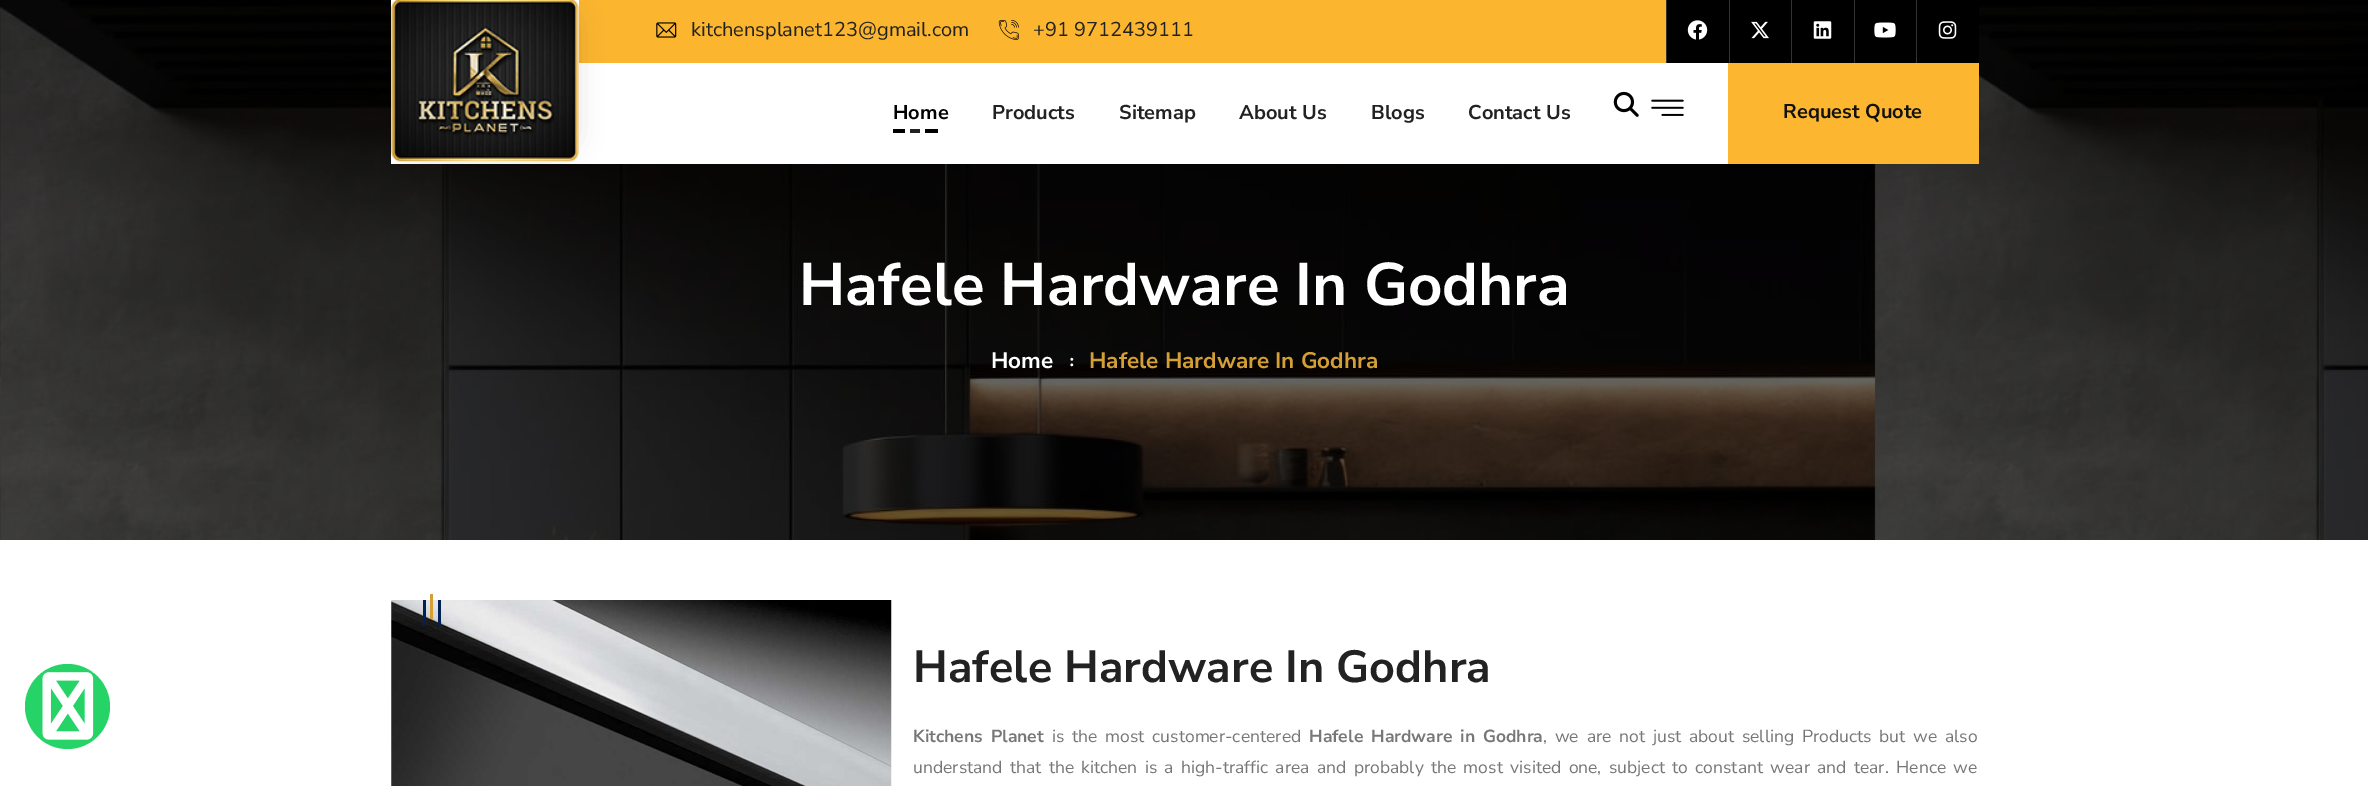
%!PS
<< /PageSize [2368 786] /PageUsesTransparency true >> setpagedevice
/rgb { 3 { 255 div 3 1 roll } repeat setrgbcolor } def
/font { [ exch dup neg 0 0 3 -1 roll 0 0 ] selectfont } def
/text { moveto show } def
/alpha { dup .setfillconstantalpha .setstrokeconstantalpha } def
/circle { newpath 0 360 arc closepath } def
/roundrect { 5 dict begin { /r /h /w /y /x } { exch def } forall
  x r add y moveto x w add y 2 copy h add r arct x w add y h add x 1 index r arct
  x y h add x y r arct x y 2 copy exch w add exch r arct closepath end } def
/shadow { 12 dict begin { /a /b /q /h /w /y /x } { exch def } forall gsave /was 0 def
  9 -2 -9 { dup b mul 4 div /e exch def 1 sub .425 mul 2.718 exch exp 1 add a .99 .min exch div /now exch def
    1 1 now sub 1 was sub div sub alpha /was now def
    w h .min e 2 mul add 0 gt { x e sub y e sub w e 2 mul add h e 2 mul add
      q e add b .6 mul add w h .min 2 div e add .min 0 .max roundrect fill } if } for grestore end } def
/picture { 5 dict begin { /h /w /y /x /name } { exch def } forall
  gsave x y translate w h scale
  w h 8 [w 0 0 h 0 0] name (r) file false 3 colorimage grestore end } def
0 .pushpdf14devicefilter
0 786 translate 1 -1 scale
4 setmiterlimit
255 255 255 rgb
0 0 2368 786 rectfill
37 211 102 rgb
67.5 706.5 42.5 circle fill
(img_01.rgb) 42 672 52 68 picture
(img_12.rgb) 0 0 2368 540 picture
251 181 47 rgb
391 0 1275 63 rectfill
(img_02.rgb) 656 22 21 16 picture
(img_03.rgb) 998 20 21 20 picture
51 51 51 rgb
1666 0 1 63 rectfill
(img_04.rgb) 1687 20 21 20 picture
1729 0 1 63 rectfill
(img_05.rgb) 1751 21 18 18 picture
1791 0 1 63 rectfill
(img_06.rgb) 1813 21 19 18 picture
0 0 0 rgb
1874 0 42 63 rectfill
51 51 51 rgb
1854 0 1 63 rectfill
(img_07.rgb) 1874 22 22 16 picture
0 0 0 rgb
1917 0 62 63 rectfill
51 51 51 rgb
1916 0 1 63 rectfill
(img_08.rgb) 1938 21 19 18 picture
255 255 255 rgb
391 63 1337 101 rectfill
0 0 0 rgb
391 -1 188 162 31 12.5 0.1 shadow
(img_09.rgb) 391 0 188 162 picture
34 34 34 rgb
910 129 10 4 rectfill
0 0 0 rgb
893 129 17 4 rectfill
255 255 255 rgb
905 129 5 4 rectfill
0 0 0 rgb
920 129 18 4 rectfill
255 255 255 rgb
920 129 5 4 rectfill
(img_10.rgb) 1613 91 26 26 picture
(img_11.rgb) 1651 99 33 17 picture
252 182 47 rgb
1728 63 251 101 rectfill
(img_13.rgb) 391 600 501 186 picture
0 33 85 rgb
438 600 3 25 rectfill
423 600 3 25 rectfill
212 159 52 rgb
430 594 3 25 rectfill
/NunitoSans-Regular 20 font
34 34 34 rgb
(kitchensplanet123@gmail.com) 691 36 text
(+91 9712439111) 1033 36 text
/NunitoSans-Bold 20 font
0 0 0 rgb
(Home) 893 119 text
34 34 34 rgb
(Products) 992 119 text
(Sitemap) 1119 119 text
(About Us) 1239 119 text
(Blogs) 1371 119 text
(Contact Us) 1468 119 text
17 17 17 rgb
(Request Quote) 1783 118 text
/NunitoSans-Bold 60 font
255 255 255 rgb
(Hafele Hardware In Godhra) 799 305 text
/NunitoSans-Bold 22.5 font
(Home) 991 368 text
/LiberationSerif-Bold 17.5 font
(:) 1069 366 text
/NunitoSans-Bold 22.5 font
212 159 52 rgb
(Hafele Hardware In Godhra) 1089 368 text
/NunitoSans-Bold 45 font
34 34 34 rgb
(Hafele Hardware In Godhra) 913 682 text
/NunitoSans-Bold 17.5 font
119 119 119 rgb
913 742 moveto 3.25 0 32 (Kitchens Planet) widthshow
/NunitoSans-Regular 17.5 font
1052 742 moveto 3.25 0 32 (is the most customer-centered) widthshow
/NunitoSans-Bold 17.5 font
1309 742 moveto 3.25 0 32 (Hafele Hardware in Godhra) widthshow
/NunitoSans-Regular 17.5 font
1543 742 moveto 3.25 0 32 (, we are not just about selling Products but we also) widthshow
913 773 moveto 2.8 0 32 (understand that the kitchen is a high-traffic area and probably the most visited one, subject to constant wear and tear. Hence we) widthshow
.poppdf14devicefilter showpage
